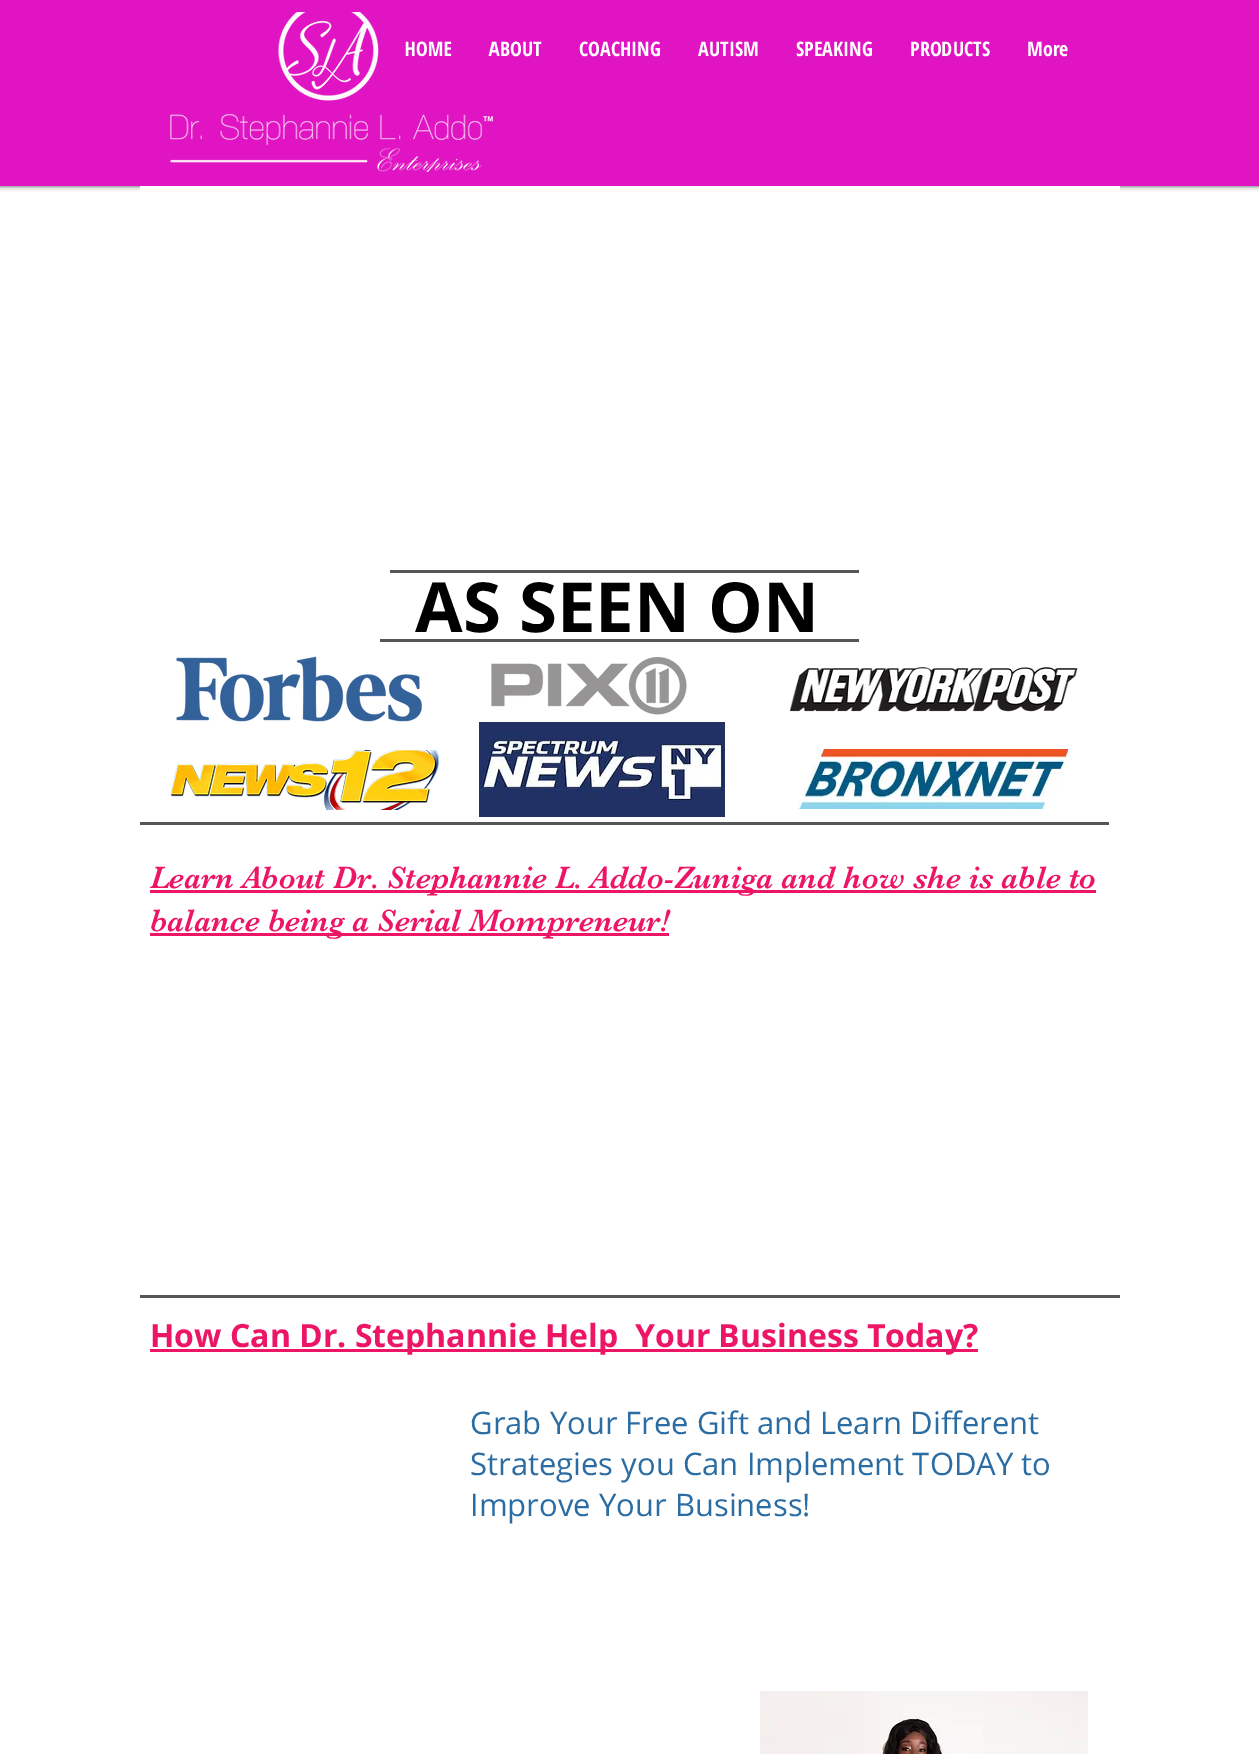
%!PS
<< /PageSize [1259 1754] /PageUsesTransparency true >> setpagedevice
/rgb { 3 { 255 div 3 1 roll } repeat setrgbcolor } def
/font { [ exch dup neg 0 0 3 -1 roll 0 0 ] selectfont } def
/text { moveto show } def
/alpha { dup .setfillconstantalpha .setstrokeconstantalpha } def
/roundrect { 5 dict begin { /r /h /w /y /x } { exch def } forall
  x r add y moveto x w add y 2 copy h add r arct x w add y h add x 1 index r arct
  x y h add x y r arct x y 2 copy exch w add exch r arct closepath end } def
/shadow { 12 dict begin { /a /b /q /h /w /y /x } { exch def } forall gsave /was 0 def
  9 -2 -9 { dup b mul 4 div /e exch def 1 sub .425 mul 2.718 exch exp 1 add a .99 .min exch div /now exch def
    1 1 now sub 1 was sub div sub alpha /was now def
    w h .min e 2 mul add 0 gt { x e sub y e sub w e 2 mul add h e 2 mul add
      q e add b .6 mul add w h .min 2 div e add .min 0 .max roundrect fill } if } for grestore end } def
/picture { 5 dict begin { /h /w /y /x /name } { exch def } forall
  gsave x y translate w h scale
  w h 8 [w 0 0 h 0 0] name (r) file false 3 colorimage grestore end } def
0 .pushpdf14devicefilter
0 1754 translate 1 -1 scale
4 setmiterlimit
255 255 255 rgb
0 0 1259 1754 rectfill
0 0 0 rgb
0 0 1259 186 0 2.5 0.7 shadow
224 20 194 rgb
0 0 1259 186 rectfill
255 255 255 rgb
140 186 980 5 rectfill
84 86 88 rgb
390 570 469 3 rectfill
380 639 479 3 rectfill
(img_02.rgb) 176 656 246 66 picture
(img_03.rgb) 491 656 196 59 picture
(img_04.rgb) 790 667 288 45 picture
(img_05.rgb) 170 750 269 60 picture
(img_06.rgb) 479 722 246 95 picture
(img_07.rgb) 799 749 269 60 picture
140 822 969 3 rectfill
237 21 102 rgb
150 890 946 3 rectfill
150 933 519 3 rectfill
84 86 88 rgb
140 1295 980 3 rectfill
237 21 102 rgb
150 1349 828 3 rectfill
(img_08.rgb) 760 1691 328 63 picture
/OpenSansCondensed-Bold 20 font
255 255 255 rgb
(HOME) 405 56 text
(ABOUT) 489 56 text
(img_01.rgb) 170 12 323 160 picture
(COACHING) 579 56 text
(AUTISM) 698 56 text
(SPEAKING) 796 56 text
(PRODUCTS) 910 56 text
(More) 1027 56 text
/OpenSans-Bold 69 font
0 0 0 rgb
(AS SEEN ON) 415 632 text
/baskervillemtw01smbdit-Regular 32 font
237 21 102 rgb
(Learn About Dr. Stephannie L. Addo-Zuniga and how she is able to) 150 888 text
(balance being a Serial Mompreneur!) 150 931 text
/OpenSans-Bold 32 font
(How Can Dr. Stephannie Help  Your Business Today?) 150 1347 text
/OpenSans-Regular 31 font
43 108 163 rgb
(Grab Your Free Gift and Learn Different) 470 1434 text
(Strategies you Can Implement TODAY to) 470 1475 text
(Improve Your Business!) 470 1516 text
.poppdf14devicefilter showpage
